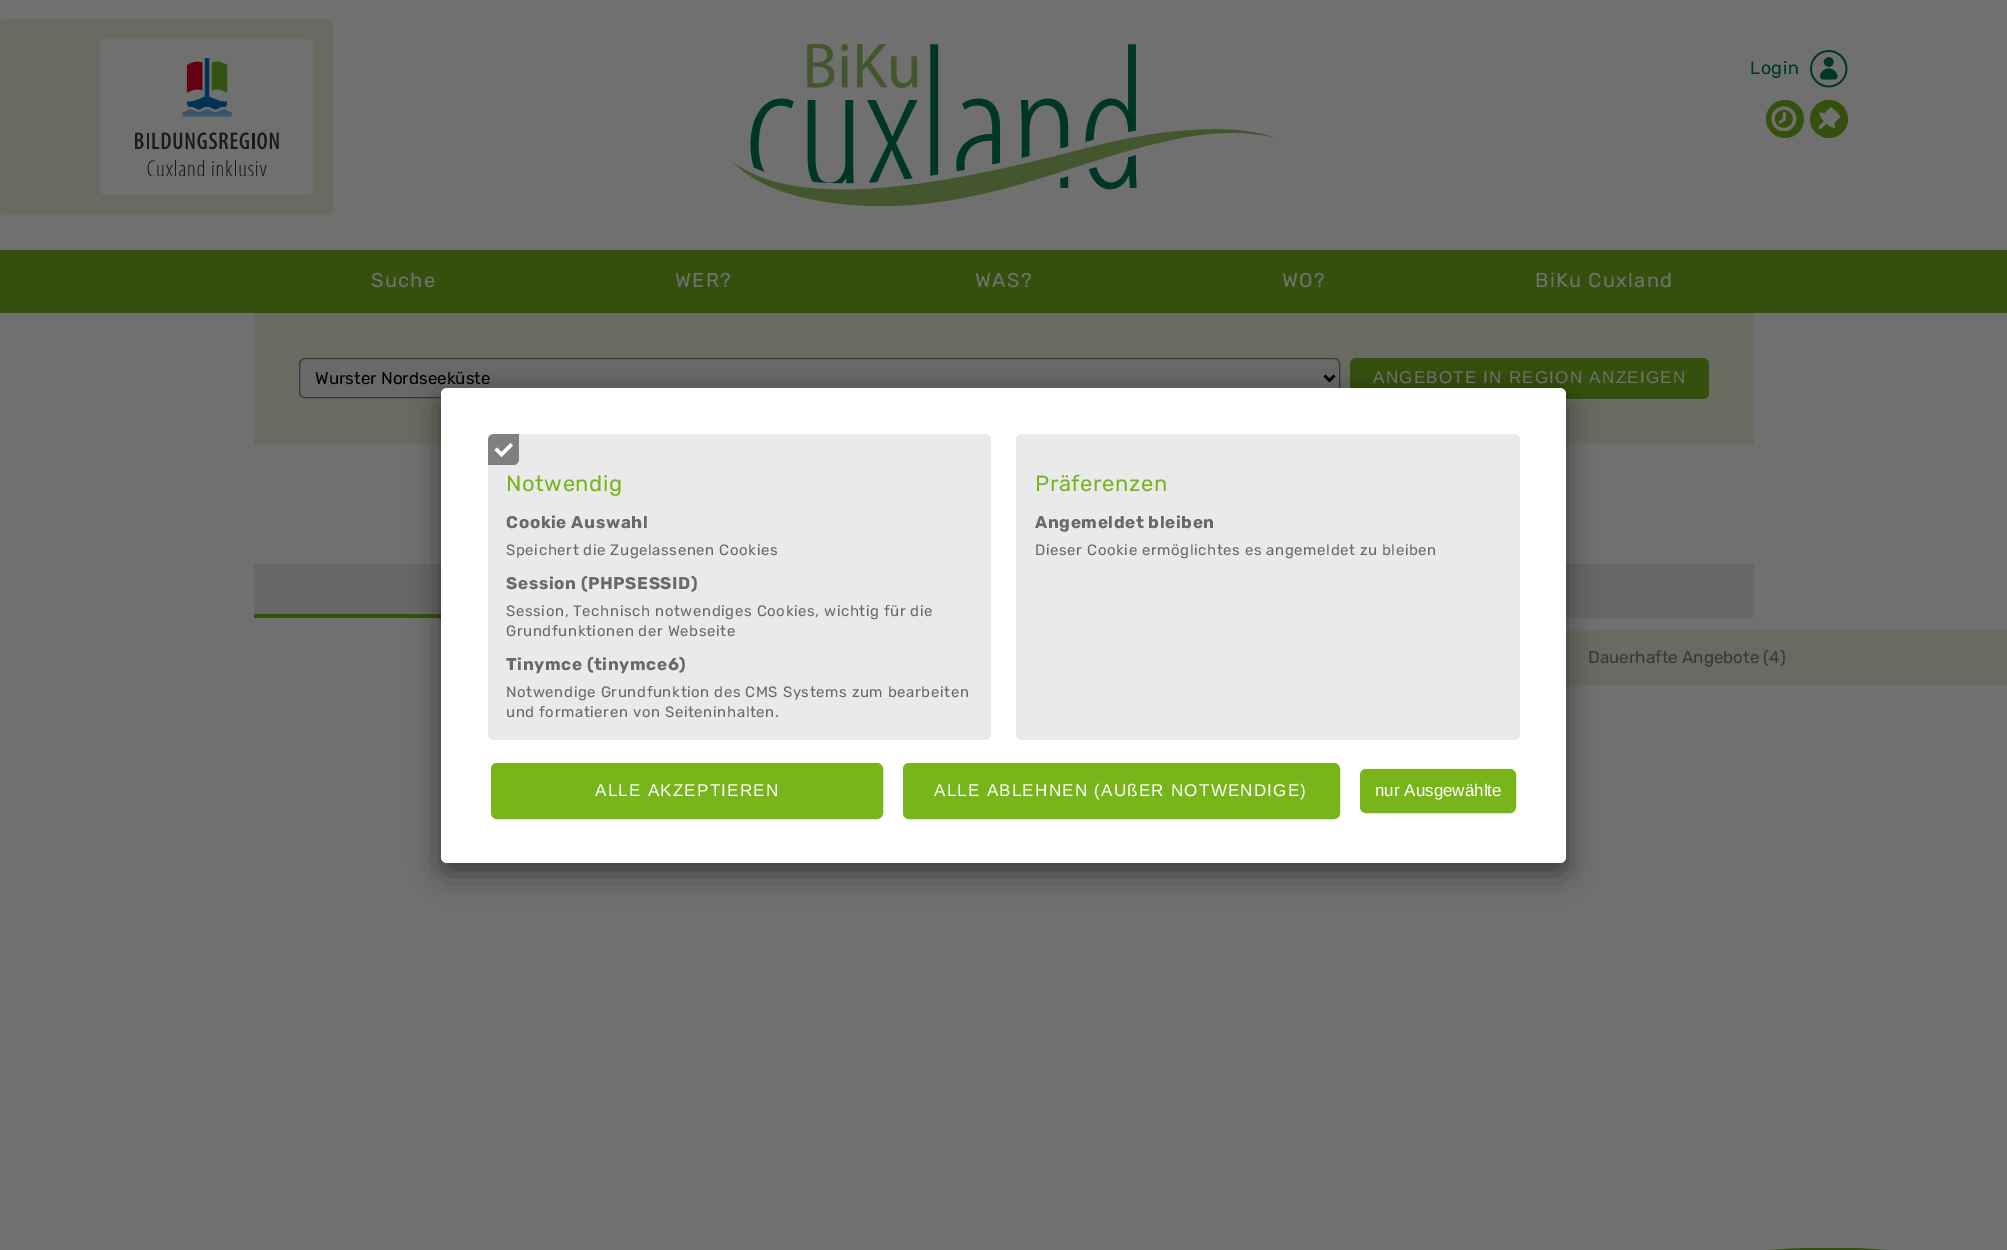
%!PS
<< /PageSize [2007 1250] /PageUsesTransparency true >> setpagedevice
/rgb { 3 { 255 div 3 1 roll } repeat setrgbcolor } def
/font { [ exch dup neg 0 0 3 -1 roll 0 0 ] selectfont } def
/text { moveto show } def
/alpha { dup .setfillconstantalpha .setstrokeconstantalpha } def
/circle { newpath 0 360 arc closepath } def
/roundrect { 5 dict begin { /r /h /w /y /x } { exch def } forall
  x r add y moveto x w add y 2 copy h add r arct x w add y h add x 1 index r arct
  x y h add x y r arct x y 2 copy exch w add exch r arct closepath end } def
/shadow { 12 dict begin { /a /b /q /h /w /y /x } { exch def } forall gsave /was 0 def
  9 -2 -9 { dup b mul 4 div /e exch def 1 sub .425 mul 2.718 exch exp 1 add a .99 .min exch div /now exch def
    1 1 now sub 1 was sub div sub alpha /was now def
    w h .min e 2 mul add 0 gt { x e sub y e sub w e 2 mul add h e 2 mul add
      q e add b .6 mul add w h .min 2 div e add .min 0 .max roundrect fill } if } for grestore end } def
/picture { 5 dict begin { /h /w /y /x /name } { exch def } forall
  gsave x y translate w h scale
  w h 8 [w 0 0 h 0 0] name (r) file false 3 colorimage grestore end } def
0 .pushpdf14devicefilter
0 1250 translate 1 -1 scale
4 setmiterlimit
112 112 112 rgb
0 0 2007 1250 rectfill
(img_01.rgb) 733 44 542 162 picture
(img_02.rgb) 1810 50 38 38 picture
53 80 12 rgb
1785 119 19 circle fill
(img_03.rgb) 1771 106 26 25 picture
1829 119 19 circle fill
(img_04.rgb) 1818 107 22 22 picture
0 250 2007 63 rectfill
103 107 97 rgb
0 19 333 196 6 roundrect fill
112 112 112 rgb
100 39 213 156 6 roundrect fill
(img_05.rgb) 135 58 144 118 picture
103 107 97 rgb
254 313 1500 131 rectfill
105 105 105 rgb
299.5 358.5 1040 39 5.5 roundrect gsave fill grestore
56 56 56 rgb
stroke
0 0 0 rgb
2.5 setlinewidth
1324.5 375.5 moveto 5 5 rlineto 5 -5 rlineto stroke
53 80 12 rgb
1350 358 359 41 6 roundrect fill
103 103 103 rgb
254 564 1500 54 rectfill
53 80 12 rgb
254 614 187 4 rectfill
103 107 97 rgb
1566 631 441 54 rectfill
0 0 0 rgb
441 400 1125 475 6 15.5 0.3 shadow
441 394 1125 475 6 12.5 0.22 shadow
255 255 255 rgb
441 388 1125 475 6 roundrect fill
234 234 234 rgb
488 434 503 306 6 roundrect fill
128 128 128 rgb
494 434 moveto 25 0 rlineto 0 25 rlineto 0 3.5 -2.5 6 -6 6 rcurveto -25 0 rlineto 0 -25 rlineto 0 -3.5 2.5 -6 6 -6 rcurveto closepath fill
255 255 255 rgb
510.5 443 moveto 2.5 2.5 rlineto -11.5 11.5 rlineto -2.5 -2.5 rlineto closepath fill
497 447.5 moveto 7 7 rlineto -2.5 2.5 rlineto -7 -7 rlineto closepath fill
234 234 234 rgb
1016 434 504 306 6 roundrect fill
120 181 27 rgb
492.5 764.5 389 53 4.5 roundrect gsave fill grestore
3 setlinewidth
stroke
904.5 764.5 434 53 4.5 roundrect gsave fill grestore
stroke
1361.5 770.5 153 41 4.5 roundrect gsave fill grestore
stroke
gsave
0 1248 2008 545 rectclip
53 80 12 rgb
2007 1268 moveto -27 -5 -54 -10 -82 -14 rcurveto -87 -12 -174 -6 -259 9 rcurveto -147 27 -278 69 -409 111 rcurveto -156 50 -313 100 -492 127 rcurveto -184 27 -366 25 -540 -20 rcurveto -97 -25 -171 -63 -225 -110 rcurveto 0 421 rlineto 2007 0 rlineto closepath fill
grestore
/Rubik-Light 18 font
0 54 37 rgb
1750 74 moveto 0.5 0 (Login) ashow
/Rubik-Light 20 font
112 112 112 rgb
371 287 moveto 1.25 0 (Suche) ashow
675 287 moveto 1.25 0 (WER?) ashow
975 287 moveto 1.25 0 (WAS?) ashow
1282 287 moveto 1.25 0 (WO?) ashow
1535 287 moveto 1.25 0 (BiKu Cuxland) ashow
/Rubik-Light 17 font
0 0 0 rgb
(Wurster Nordseeküste) 315 384 text
/LiberationSans-Regular 17 font
112 112 112 rgb
1373 383 moveto 1.25 0 (ANGEBOTE IN REGION ANZEIGEN) ashow
/Rubik-Light 17 font
56 56 56 rgb
(Dauerhafte Angebote \(4\)) 1588 663 text
/Rubik-Light 22 font
120 181 27 rgb
506 491 moveto 0.6 0 (Notwendig) ashow
/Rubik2-Light 17 font
105 105 105 rgb
506 528 moveto 0.6 0 (Cookie Auswahl) ashow
/Rubik-Light 15 font
506 555 moveto 0.6 0 (Speichert die Zugelassenen Cookies) ashow
/Rubik2-Light 17 font
506 589 moveto 0.6 0 (Session \(PHPSESSID\)) ashow
/Rubik-Light 15 font
506 616 moveto 0.6 0 (Session, Technisch notwendiges Cookies, wichtig für die) ashow
506 636 moveto 0.6 0 (Grundfunktionen der Webseite) ashow
/Rubik2-Light 17 font
506 670 moveto 0.6 0 (Tinymce \(tinymce6\)) ashow
/Rubik-Light 15 font
506 697 moveto 0.6 0 (Notwendige Grundfunktion des CMS Systems zum bearbeiten) ashow
506 717 moveto 0.6 0 (und formatieren von Seiteninhalten.) ashow
/Rubik-Light 22 font
120 181 27 rgb
1035 491 moveto 0.6 0 (Präferenzen) ashow
/Rubik2-Light 17 font
105 105 105 rgb
1035 528 moveto 0.6 0 (Angemeldet bleiben) ashow
/Rubik-Light 15 font
1035 555 moveto 0.6 0 (Dieser Cookie ermöglichtes es angemeldet zu bleiben) ashow
/LiberationSans-Regular 17 font
255 255 255 rgb
595 796 moveto 1.25 0 (ALLE AKZEPTIEREN) ashow
934 796 moveto 1.25 0 (ALLE ABLEHNEN \(AUßER NOTWENDIGE\)) ashow
(nur Ausgewählte) 1375 796 text
.poppdf14devicefilter showpage
